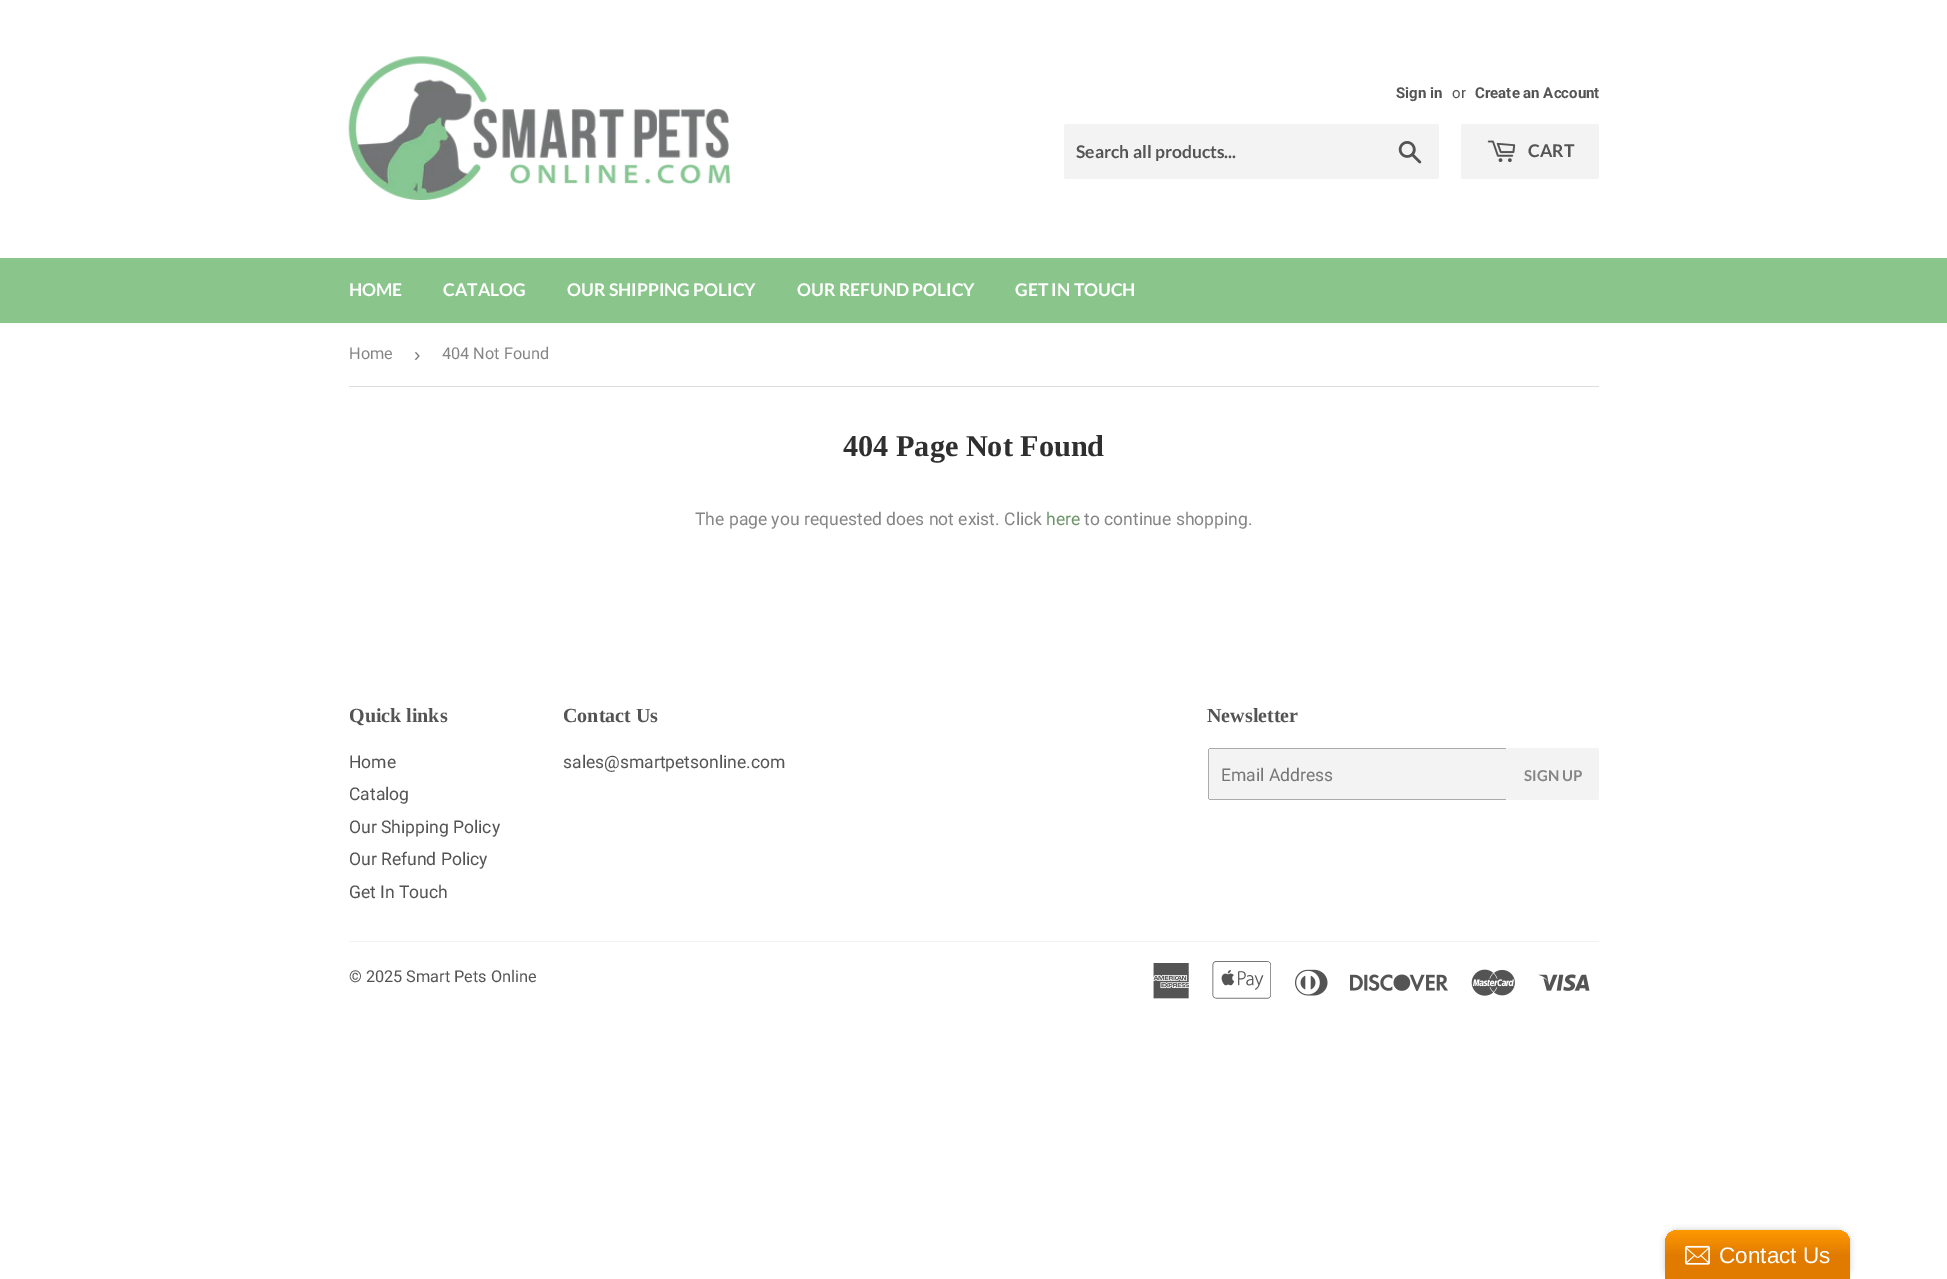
%!PS
<< /PageSize [1947 1279] /PageUsesTransparency true >> setpagedevice
/rgb { 3 { 255 div 3 1 roll } repeat setrgbcolor } def
/font { [ exch dup neg 0 0 3 -1 roll 0 0 ] selectfont } def
/text { moveto show } def
/alpha { dup .setfillconstantalpha .setstrokeconstantalpha } def
/roundrect { 5 dict begin { /r /h /w /y /x } { exch def } forall
  x r add y moveto x w add y 2 copy h add r arct x w add y h add x 1 index r arct
  x y h add x y r arct x y 2 copy exch w add exch r arct closepath end } def
/shadow { 12 dict begin { /a /b /q /h /w /y /x } { exch def } forall gsave /was 0 def
  9 -2 -9 { dup b mul 4 div /e exch def 1 sub .425 mul 2.718 exch exp 1 add a .99 .min exch div /now exch def
    1 1 now sub 1 was sub div sub alpha /was now def
    w h .min e 2 mul add 0 gt { x e sub y e sub w e 2 mul add h e 2 mul add
      q e add b .6 mul add w h .min 2 div e add .min 0 .max roundrect fill } if } for grestore end } def
/picture { 5 dict begin { /h /w /y /x /name } { exch def } forall
  gsave x y translate w h scale
  w h 8 [w 0 0 h 0 0] name (r) file false 3 colorimage grestore end } def
0 .pushpdf14devicefilter
0 1279 translate 1 -1 scale
4 setmiterlimit
255 255 255 rgb
0 0 1947 1279 rectfill
(img_01.rgb) 348 56 382 144 picture
243 243 243 rgb
1064 124 375 55 2.5 roundrect fill
(img_02.rgb) 1398 141 24 23 picture
1461 124 138 55 2.5 roundrect fill
(img_03.rgb) 1487 140 29 23 picture
138 198 140 rgb
0 258 1947 65 rectfill
222 222 222 rgb
349 386 1250 1 rectfill
243 243 243 rgb
1208 748 300 52 2.5 roundrect fill
171 171 171 rgb
1209 748 297 1 rectfill
1209 799 297 1 rectfill
1208 749 1 50 rectfill
243 243 243 rgb
1508 748 moveto 88.5 0 rlineto 1.5 0 2.5 1 2.5 2.5 rcurveto 0 47 rlineto 0 1.5 -1 2.5 -2.5 2.5 rcurveto -88.5 0 rlineto closepath fill
242 242 242 rgb
349 941 1250 1 rectfill
(img_04.rgb) 1153 963 36 36 picture
(img_05.rgb) 1212 961 59 38 picture
(img_06.rgb) 1295 969 33 27 picture
(img_07.rgb) 1350 974 98 17 picture
(img_08.rgb) 1471 969 44 27 picture
(img_09.rgb) 1538 974 52 17 picture
0 0 0 rgb
1665 1230 185 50 13 3 0.2 shadow
gsave 1678 1230 moveto 159 0 rlineto 7 0 13 6 13 13 rcurveto 0 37 rlineto -185 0 rlineto 0 -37 rlineto 0 -7 6 -13 13 -13 rcurveto closepath clip newpath
<< /ShadingType 2 /ColorSpace /DeviceRGB /Coords [1758 1230 1758 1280] /Extend [true true] /Function << /FunctionType 3 /Domain [0 1] /Functions [<< /FunctionType 2 /Domain [0 1] /C0 [1 0.6 0] /C1 [0.882 0.482 0] /N 1 >> << /FunctionType 2 /Domain [0 1] /C0 [0.882 0.482 0] /C1 [0.882 0.482 0] /N 1 >>] /Bounds [0.5] /Encode [0 1 0 1] >> >> shfill grestore
(img_10.rgb) 1685 1245 25 20 picture
/Roboto-Bold 15 font
84 84 84 rgb
(Sign in) 1396 98 text
/Roboto-Regular 15 font
(or) 1452 98 text
/Roboto-Bold 15 font
(Create an Account) 1475 98 text
/Lato-Bold 17.5 font
(Search all products...) 1076 158 text
(CART) 1528 157 text
255 255 255 rgb
(HOME) 349 296 text
(CATALOG) 443 296 text
(OUR SHIPPING POLICY) 567 296 text
(OUR REFUND POLICY) 797 296 text
(GET IN TOUCH) 1015 296 text
/Roboto-Regular 16.25 font
133 133 133 rgb
(Home) 349 359 text
/LiberationSans-Regular 19 font
118 118 118 rgb
(›) 414 361 text
/Roboto-Regular 16.25 font
133 133 133 rgb
(404 Not Found) 442 359 text
/LiberationSerif-Bold 30.25 font
47 47 47 rgb
(404 Page Not Found) 843 456 text
/Roboto-Regular 17.5 font
133 133 133 rgb
(The page you requested does not exist. Click) 695 525 text
109 148 105 rgb
(here) 1046 525 text
133 133 133 rgb
(to continue shopping.) 1084 525 text
/LiberationSerif-Bold 20 font
84 84 84 rgb
(Quick links) 349 722 text
/Roboto-Regular 17.5 font
(Home) 349 768 text
(Catalog) 349 800 text
(Our Shipping Policy) 349 833 text
(Our Refund Policy) 349 865 text
(Get In Touch) 349 898 text
/LiberationSerif-Bold 20 font
(Contact Us) 563 722 text
/Roboto-Regular 17.5 font
(sales@smartpetsonline.com) 563 768 text
/LiberationSerif-Bold 20 font
(Newsletter) 1207 722 text
/Roboto-Regular 17.5 font
118 118 118 rgb
(Email Address) 1221 781 text
/Lato-Bold 15 font
133 133 133 rgb
(SIGN UP) 1524 781 text
/Roboto-Regular 16.25 font
84 84 84 rgb
(© 2025 Smart Pets Online) 349 982 text
/LiberationSans-Regular 22.5 font
255 255 255 rgb
(Contact Us) 1719 1263 text
.poppdf14devicefilter showpage
